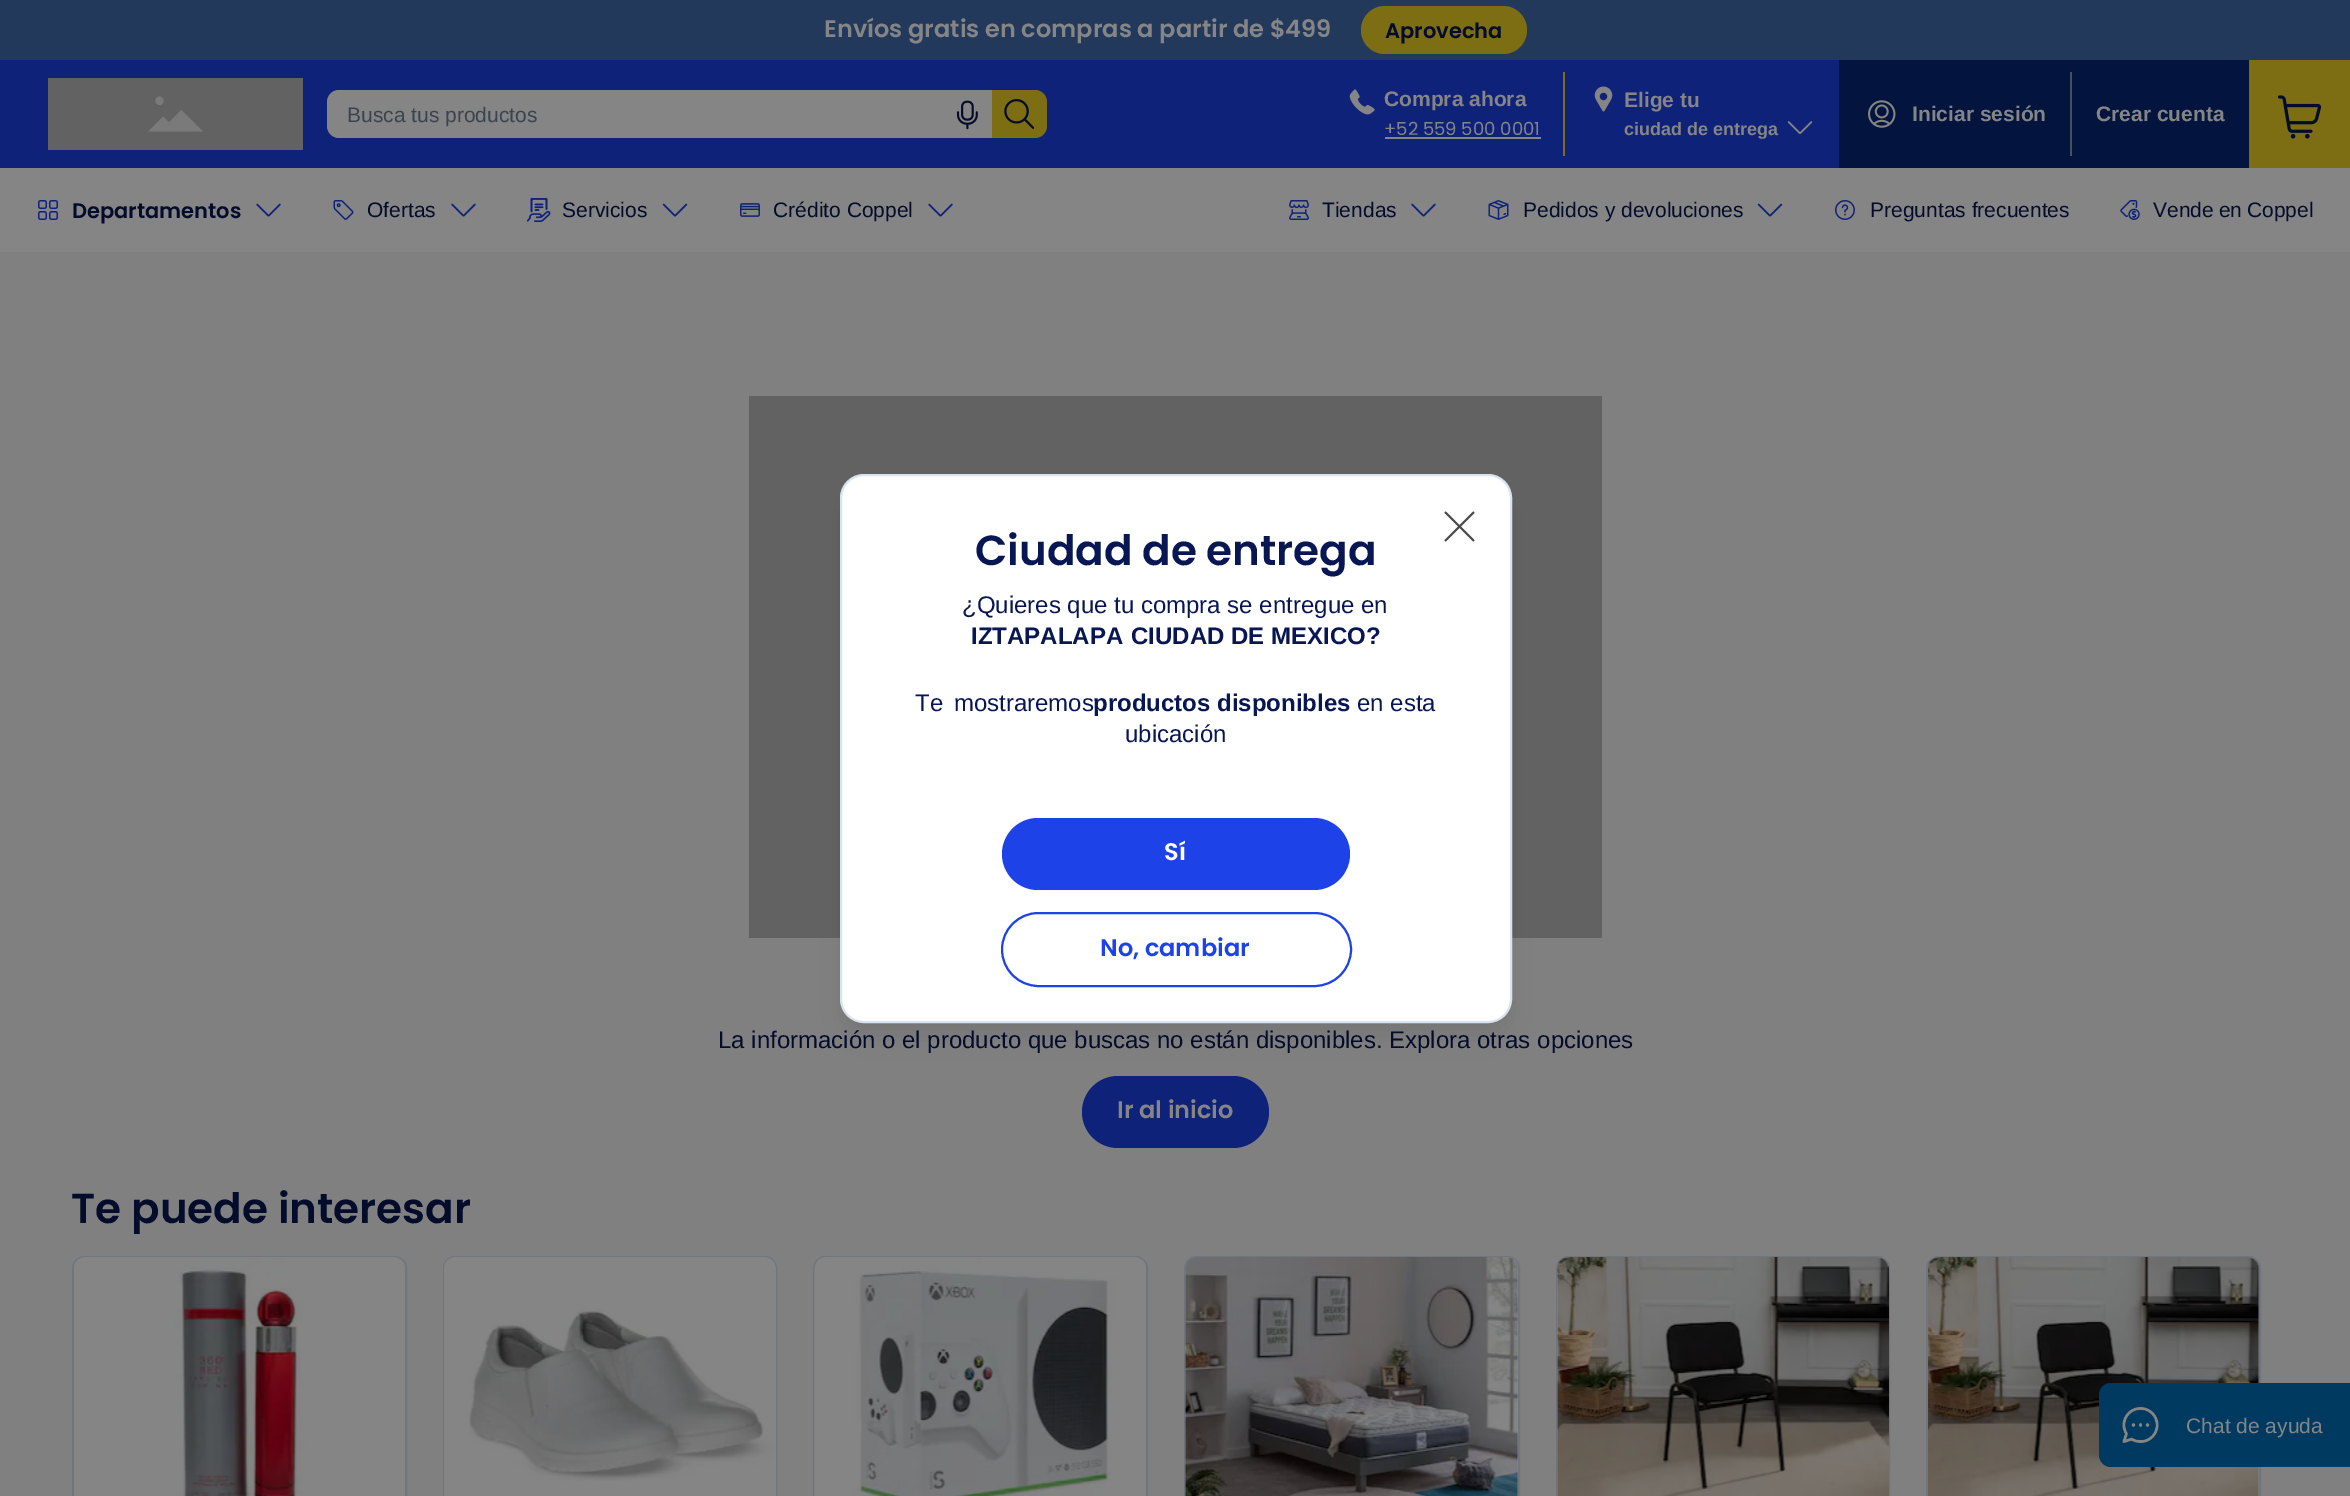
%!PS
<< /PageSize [2350 1496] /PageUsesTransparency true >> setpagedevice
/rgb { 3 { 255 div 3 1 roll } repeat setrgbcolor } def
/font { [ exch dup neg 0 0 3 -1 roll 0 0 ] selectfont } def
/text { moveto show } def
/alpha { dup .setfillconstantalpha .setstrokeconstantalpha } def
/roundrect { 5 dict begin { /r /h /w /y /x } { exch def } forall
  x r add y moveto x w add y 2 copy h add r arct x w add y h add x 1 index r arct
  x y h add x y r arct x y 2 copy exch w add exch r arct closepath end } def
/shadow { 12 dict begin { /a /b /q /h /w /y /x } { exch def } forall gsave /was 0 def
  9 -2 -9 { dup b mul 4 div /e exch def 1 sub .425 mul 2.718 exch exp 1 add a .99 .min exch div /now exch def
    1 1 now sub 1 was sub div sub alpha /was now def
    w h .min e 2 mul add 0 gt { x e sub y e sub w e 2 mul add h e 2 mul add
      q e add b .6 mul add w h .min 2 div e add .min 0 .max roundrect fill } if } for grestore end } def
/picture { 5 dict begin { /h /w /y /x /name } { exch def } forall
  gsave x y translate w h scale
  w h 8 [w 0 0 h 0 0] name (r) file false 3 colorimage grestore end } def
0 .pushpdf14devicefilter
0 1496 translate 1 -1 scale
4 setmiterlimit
128 128 128 rgb
0 0 2350 1496 rectfill
34 57 92 rgb
0 0 2350 60 rectfill
125 109 19 rgb
1361 6 166 48 24 roundrect fill
15 34 121 rgb
0 60 1839 108 rectfill
98 98 98 rgb
48 78 255 72 rectfill
(img_01.rgb) 148 96 56 36 picture
133 133 133 rgb
339 90 moveto 653 0 rlineto 0 48 rlineto -653 0 rlineto -6.5 0 -12 -5.5 -12 -12 rcurveto 0 -24 rlineto 0 -6.5 5.5 -12 12 -12 rcurveto closepath fill
(img_02.rgb) 956 100 22 30 picture
125 109 19 rgb
992 90 moveto 43 0 rlineto 6.5 0 12 5.5 12 12 rcurveto 0 24 rlineto 0 6.5 -5.5 12 -12 12 rcurveto -43 0 rlineto closepath fill
(img_03.rgb) 1004 99 30 30 picture
(img_04.rgb) 1349 89 26 26 picture
133 133 133 rgb
1385 137 156 2 rectfill
125 109 19 rgb
1563 72 2 84 rectfill
(img_05.rgb) 1594 86 19 26 picture
(img_06.rgb) 1787 121 26 13 picture
3 21 63 rgb
1839 60 410 108 rectfill
(img_07.rgb) 1868 100 28 28 picture
69 80 101 rgb
2070 72 2 84 rectfill
125 109 19 rgb
2249 60 101 108 rectfill
(img_08.rgb) 2277 95 45 44 picture
133 133 133 rgb
0 168 2350 84 rectfill
(img_09.rgb) 38 200 20 20 picture
(img_10.rgb) 256 203 25 14 picture
(img_11.rgb) 333 200 21 20 picture
(img_10.rgb) 451 203 25 14 picture
(img_12.rgb) 527 198 24 24 picture
(img_13.rgb) 662 203 26 14 picture
(img_14.rgb) 740 203 20 14 picture
(img_10.rgb) 928 203 25 14 picture
(img_15.rgb) 1289 200 20 20 picture
(img_10.rgb) 1411 203 25 14 picture
(img_16.rgb) 1488 200 21 20 picture
(img_13.rgb) 1757 203 26 14 picture
(img_17.rgb) 1835 200 20 20 picture
(img_18.rgb) 2120 200 20 20 picture
98 98 98 rgb
749 396 853 542 rectfill
15 34 121 rgb
1082 1076 187 72 36 roundrect fill
113 118 126 rgb
2 setlinewidth
73 1257 333 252 11 roundrect stroke
gsave
74 1257 331 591 11 roundrect clip newpath
133 133 133 rgb
86 1257 moveto 307 0 rlineto 6.5 0 12 5.5 12 12 rcurveto 0 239 rlineto -331 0 rlineto 0 -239 rlineto 0 -6.5 5.5 -12 12 -12 rcurveto closepath fill
grestore
(img_19.rgb) 74 1257 331 239 picture
444 1257 332 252 11 roundrect stroke
gsave
444 1257 332 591 11 roundrect clip newpath
133 133 133 rgb
456 1257 moveto 308 0 rlineto 6.5 0 12 5.5 12 12 rcurveto 0 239 rlineto -332 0 rlineto 0 -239 rlineto 0 -6.5 5.5 -12 12 -12 rcurveto closepath fill
grestore
(img_20.rgb) 444 1257 332 224 picture
814 1257 333 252 11 roundrect stroke
gsave
815 1257 331 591 11 roundrect clip newpath
133 133 133 rgb
827 1257 moveto 307 0 rlineto 6.5 0 12 5.5 12 12 rcurveto 0 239 rlineto -331 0 rlineto 0 -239 rlineto 0 -6.5 5.5 -12 12 -12 rcurveto closepath fill
grestore
(img_21.rgb) 814 1257 332 239 picture
1185 1257 334 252 11 roundrect stroke
gsave
1185 1257 333 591 11 roundrect clip newpath
133 133 133 rgb
1197 1257 moveto 309 0 rlineto 6.5 0 12 5.5 12 12 rcurveto 0 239 rlineto -333 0 rlineto 0 -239 rlineto 0 -6.5 5.5 -12 12 -12 rcurveto closepath fill
grestore
(img_22.rgb) 1184 1257 335 239 picture
1557 1257 332 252 11 roundrect stroke
gsave
1557 1257 332 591 11 roundrect clip newpath
133 133 133 rgb
1569 1257 moveto 308 0 rlineto 6.5 0 12 5.5 12 12 rcurveto 0 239 rlineto -332 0 rlineto 0 -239 rlineto 0 -6.5 5.5 -12 12 -12 rcurveto closepath fill
grestore
(img_23.rgb) 1556 1257 333 239 picture
1927 1257 333 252 11 roundrect stroke
gsave
1928 1257 331 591 11 roundrect clip newpath
133 133 133 rgb
1940 1257 moveto 307 0 rlineto 6.5 0 12 5.5 12 12 rcurveto 0 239 rlineto -331 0 rlineto 0 -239 rlineto 0 -6.5 5.5 -12 12 -12 rcurveto closepath fill
grestore
(img_24.rgb) 1928 1257 332 239 picture
0 0 0 rgb
845 494 663 540 20 11 0.1 shadow
255 255 255 rgb
841 475 670 547 23 roundrect gsave fill grestore
217 227 242 rgb
stroke
(img_25.rgb) 1444 511 31 31 picture
28 66 232 rgb
1002 818 348 72 36 roundrect fill
1002 913 349 73 36.5 roundrect stroke
0 58 96 rgb
2111 1383 moveto 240 0 rlineto 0 84 rlineto -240 0 rlineto -6.5 0 -12 -5.5 -12 -12 rcurveto 0 -60 rlineto 0 -6.5 5.5 -12 12 -12 rcurveto closepath fill
(img_26.rgb) 2122 1407 37 36 picture
/Poppins-SemiBold 24 font
133 133 133 rgb
(Envíos gratis en compras a partir de $499) 824 37 text
/Poppins-SemiBold 21 font
4 12 44 rgb
(Aprovecha) 1385 38 text
/LiberationSans-Regular 21 font
59 67 78 rgb
(Busca tus productos) 347 122 text
/LiberationSans-Bold 21 font
133 133 133 rgb
(Compra ahora) 1384 106 text
/Poppins-Regular 18 font
(+52 559 500 0001) 1384 135 text
/LiberationSans-Bold 21 font
(Elige tu) 1624 107 text
/LiberationSans-Bold 18 font
(ciudad de entrega) 1624 135 text
/LiberationSans-Bold 21 font
(Iniciar sesión) 1912 121 text
(Crear cuenta) 2096 121 text
/Poppins-SemiBold 21 font
4 12 44 rgb
(Departamentos) 72 218 text
/LiberationSans-Regular 21 font
(Ofertas) 367 217 text
(Servicios) 562 217 text
(Crédito Coppel) 773 217 text
(Tiendas) 1322 217 text
(Pedidos y devoluciones) 1523 217 text
(Preguntas frecuentes) 1870 217 text
2153 217 moveto -1 0 32 (Vende en Coppel) widthshow
/LiberationSans-Regular 24 font
(La información o el producto que buscas no están disponibles. Explora otras opciones) 718 1048 text
/Poppins-SemiBold 24 font
133 133 133 rgb
(Ir al inicio) 1117 1118 text
/Poppins-SemiBold 42 font
4 12 44 rgb
(Te puede interesar) 71 1223 text
8 23 84 rgb
(Ciudad de entrega) 975 565 text
/LiberationSans-Regular 24 font
(¿Quieres que tu compra se entregue en) 962 613 text
/LiberationSans-Bold 24 font
(IZTAPALAPA) 971 644 text
(CIUDAD DE MEXICO?) 1131 644 text
/LiberationSans-Regular 24 font
915 711 moveto 4 0 32 (Te mostraremos) widthshow
/LiberationSans-Bold 24 font
(productos disponibles) 1093 711 text
/LiberationSans-Regular 24 font
(en esta) 1357 711 text
(ubicación) 1125 742 text
/Poppins-SemiBold 24 font
255 255 255 rgb
(Sí) 1164 860 text
28 66 232 rgb
(No, cambiar) 1100 956 text
/LiberationSans-Regular 21 font
133 133 133 rgb
(Chat de ayuda) 2186 1433 text
.poppdf14devicefilter showpage
